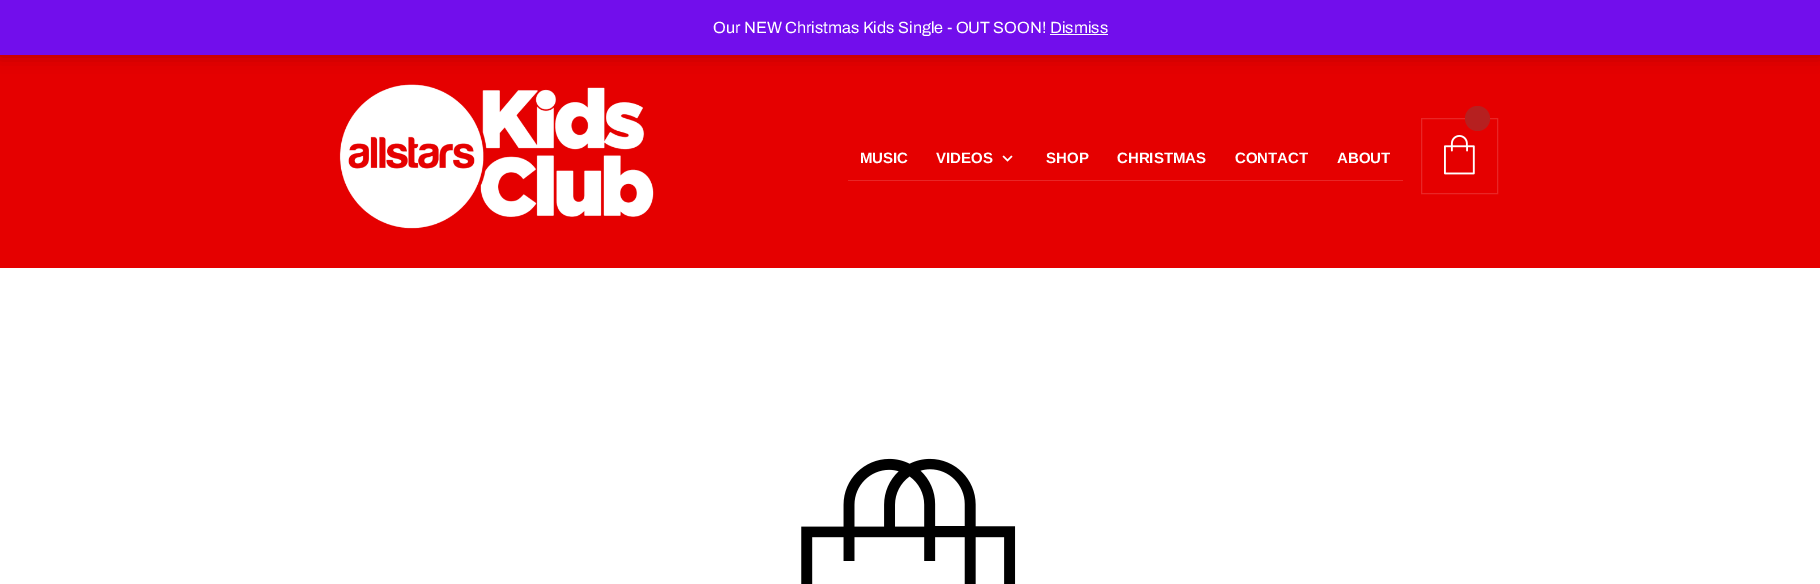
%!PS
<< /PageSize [1820 584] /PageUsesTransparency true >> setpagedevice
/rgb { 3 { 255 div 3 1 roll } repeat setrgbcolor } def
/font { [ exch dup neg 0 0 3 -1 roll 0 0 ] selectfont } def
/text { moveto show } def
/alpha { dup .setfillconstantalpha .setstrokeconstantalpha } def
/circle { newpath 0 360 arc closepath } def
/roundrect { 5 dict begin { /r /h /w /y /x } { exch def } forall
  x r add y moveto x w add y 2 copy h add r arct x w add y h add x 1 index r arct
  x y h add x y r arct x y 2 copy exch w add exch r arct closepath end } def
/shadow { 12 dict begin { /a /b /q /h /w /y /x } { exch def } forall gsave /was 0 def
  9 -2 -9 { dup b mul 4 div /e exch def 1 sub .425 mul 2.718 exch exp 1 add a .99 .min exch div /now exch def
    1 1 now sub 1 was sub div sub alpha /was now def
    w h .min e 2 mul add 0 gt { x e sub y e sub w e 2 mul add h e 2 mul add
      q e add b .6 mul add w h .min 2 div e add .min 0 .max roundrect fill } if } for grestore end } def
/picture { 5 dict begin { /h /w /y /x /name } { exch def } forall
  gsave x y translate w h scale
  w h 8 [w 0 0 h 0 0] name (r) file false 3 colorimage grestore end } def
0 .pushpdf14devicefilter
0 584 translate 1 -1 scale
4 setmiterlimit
255 255 255 rgb
0 0 1820 584 rectfill
229 0 0 rgb
0 55 1820 213 rectfill
0 0 0 rgb
0 1 1820 55 0 8 0.2 shadow
114 14 236 rgb
0 0 1820 55 rectfill
(img_01.rgb) 339 84 315 145 picture
233 38 38 rgb
848 180 555 1 rectfill
(img_02.rgb) 1002 155 11 7 picture
(img_03.rgb) 1444 135 31 40 picture
1421.5 118.5 76 75 rectstroke
182 32 32 rgb
1477.5 118.5 12.5 circle fill
(img_04.rgb) 801 458 215 126 picture
/Archivo-Regular 16.25 font
255 255 255 rgb
(Our NEW Christmas Kids Single - OUT SOON! Dismiss) 713 33 text
252 251 254 rgb
1050 34 58 1 rectfill
/LiberationSans-Bold 15 font
255 255 255 rgb
(MUSIC) 860 163 text
(VIDEOS) 936 163 text
(SHOP) 1046 163 text
(CHRISTMAS) 1117 163 text
(CONTACT) 1235 163 text
(ABOUT) 1337 163 text
.poppdf14devicefilter showpage
